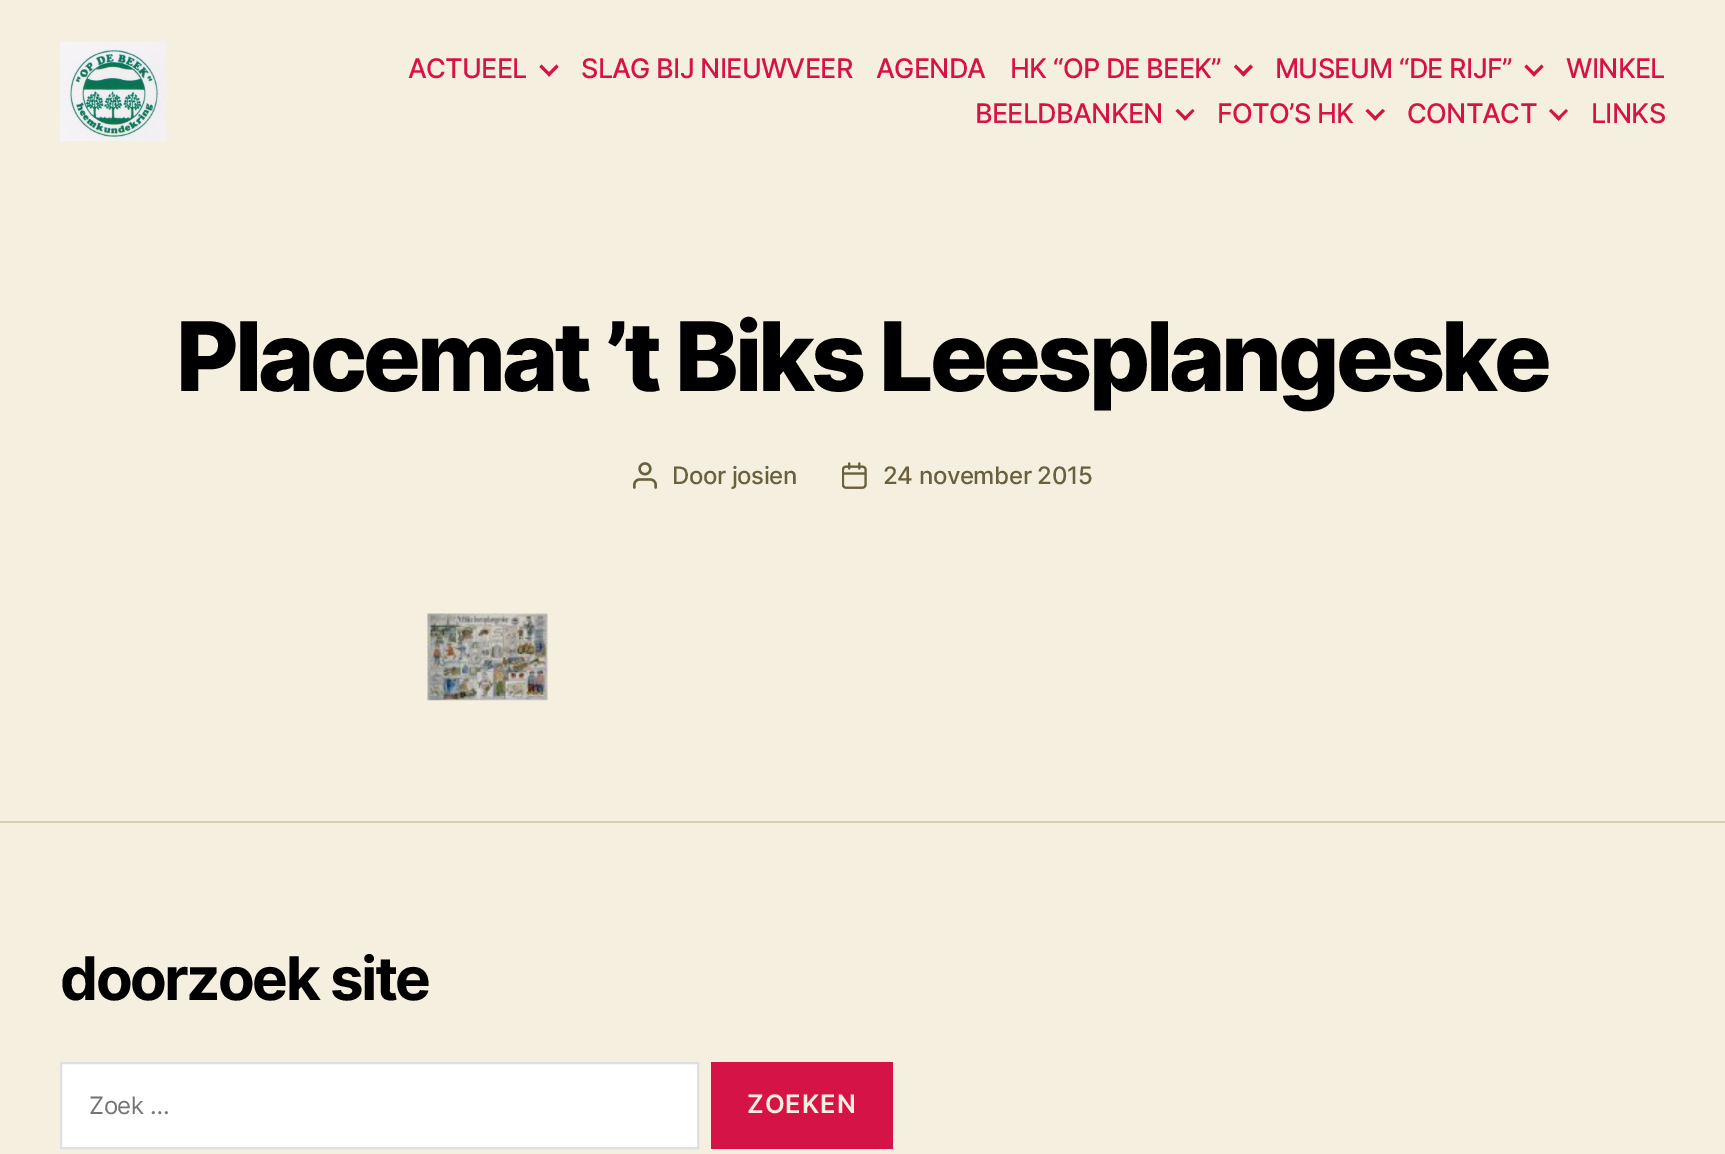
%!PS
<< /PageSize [1725 1154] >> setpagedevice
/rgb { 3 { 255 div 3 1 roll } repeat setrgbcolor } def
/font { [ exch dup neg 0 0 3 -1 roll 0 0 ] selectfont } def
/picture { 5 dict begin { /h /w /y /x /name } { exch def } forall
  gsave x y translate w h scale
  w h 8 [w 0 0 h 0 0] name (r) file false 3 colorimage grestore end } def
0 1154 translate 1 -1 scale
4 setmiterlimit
245 239 224 rgb
0 0 1725 1154 rectfill
(img_01.rgb) 60 42 107 99 picture
214 19 71 rgb
539.5 67 moveto 2 -2.5 rlineto 9.5 9.5 rlineto -2 2.5 rlineto closepath fill
547 74 moveto 9.5 -9.5 rlineto 2 2.5 rlineto -9.5 9.5 rlineto closepath fill
1234 67 moveto 2 -2.5 rlineto 9.5 9.5 rlineto -2 2.5 rlineto closepath fill
1241 74 moveto 9.5 -9.5 rlineto 2.5 2.5 rlineto -9.5 9.5 rlineto closepath fill
1524.5 67 moveto 2 -2.5 rlineto 9.5 9.5 rlineto -2 2.5 rlineto closepath fill
1532 74 moveto 9.5 -9.5 rlineto 2 2.5 rlineto -9.5 9.5 rlineto closepath fill
1175.5 111 moveto 2.5 -2 rlineto 9.5 9.5 rlineto -2.5 2 rlineto closepath fill
1183 118.5 moveto 9.5 -9.5 rlineto 2 2 rlineto -9.5 9.5 rlineto closepath fill
1365.5 111 moveto 2.5 -2 rlineto 9.5 9.5 rlineto -2.5 2 rlineto closepath fill
1373 118.5 moveto 9.5 -9.5 rlineto 2.5 2 rlineto -10 9.5 rlineto closepath fill
1549 111 moveto 2 -2 rlineto 10 9.5 rlineto -2.5 2 rlineto closepath fill
1556.5 118.5 moveto 9.5 -9.5 rlineto 2 2 rlineto -9.5 9.5 rlineto closepath fill
(img_02.rgb) 633 462 24 27 picture
(img_03.rgb) 842 462 25 27 picture
(img_04.rgb) 427 613 121 88 picture
215 207 171 rgb
0 821 1725 2 rectfill
255 255 255 rgb
61 1063 moveto 637 0 rlineto 0 85 rlineto -637 0 rlineto closepath gsave fill grestore
222 223 223 rgb
2 setlinewidth
stroke
214 19 71 rgb
711 1062 182 87 rectfill
/Inter-Medium 27 font
408 78 moveto -0.75 0 (ACTUEEL) ashow
581 78 moveto -0.75 0 (SLAG BIJ NIEUWVEER) ashow
876 78 moveto -0.75 0 (AGENDA) ashow
1010 78 moveto -0.75 0 (HK “OP DE BEEK”) ashow
1275 78 moveto -0.75 0 (MUSEUM “DE RIJF”) ashow
1566 78 moveto -0.75 0 (WINKEL) ashow
975 123 moveto -0.75 0 (BEELDBANKEN) ashow
1217 123 moveto -0.75 0 (FOTO’S HK) ashow
1407 123 moveto -0.75 0 (CONTACT) ashow
1591 123 moveto -0.75 0 (LINKS) ashow
/Inter-ExtraBold 96 font
0 0 0 rgb
176 391 moveto -4 0 (Placemat ’t Biks Leesplangeske) ashow
/Inter-Medium 24 font
105 96 62 rgb
672 484 moveto -0.4 0 (Door josien) ashow
883 484 moveto -0.4 0 (24 november 2015) ashow
/Inter-Bold 60 font
0 0 0 rgb
60 1000 moveto -2.5 0 (doorzoek site) ashow
/Inter-Regular 24 font
117 117 117 rgb
89 1114 moveto -0.5 0 (Zoek …) ashow
/Inter-SemiBold 25.5 font
245 239 224 rgb
747 1113 moveto 1 0 (ZOEKEN) ashow
showpage
